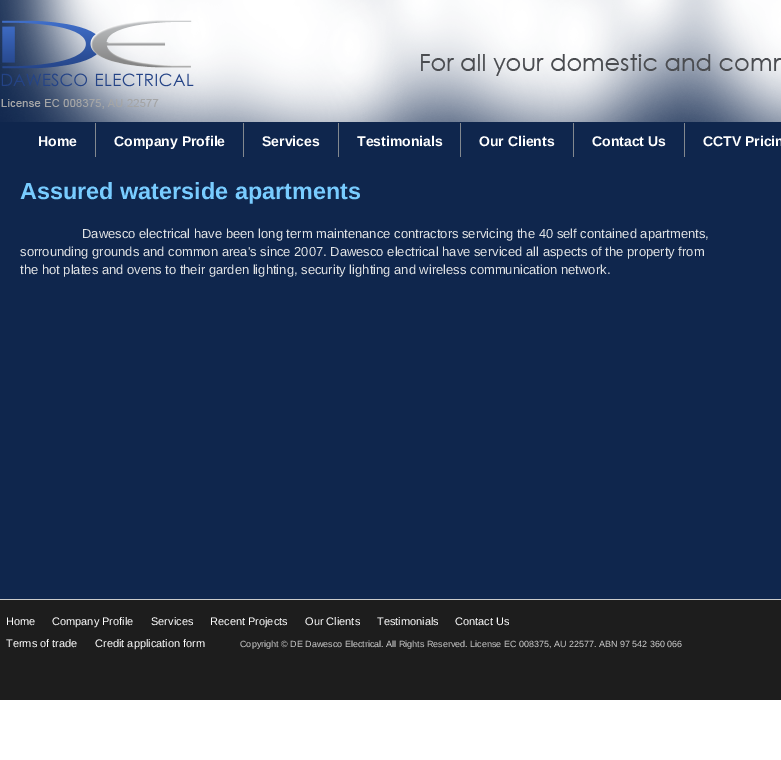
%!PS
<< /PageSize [781 760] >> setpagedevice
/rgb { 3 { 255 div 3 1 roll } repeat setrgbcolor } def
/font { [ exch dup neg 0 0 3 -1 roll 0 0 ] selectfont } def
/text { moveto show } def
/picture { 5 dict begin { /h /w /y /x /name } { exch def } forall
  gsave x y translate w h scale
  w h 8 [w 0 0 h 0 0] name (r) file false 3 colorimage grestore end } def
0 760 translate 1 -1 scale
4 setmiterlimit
255 255 255 rgb
0 0 781 760 rectfill
15 38 77 rgb
0 0 781 599 rectfill
(img_01.rgb) 0 0 781 122 picture
130 136 143 rgb
95 123 1 34 rectfill
243 123 1 34 rectfill
338 123 1 34 rectfill
460 123 1 34 rectfill
573 123 1 34 rectfill
684 123 1 34 rectfill
29 29 29 rgb
0 600 781 100 rectfill
204 204 204 rgb
0 599 781 1 rectfill
/LiberationSans-Bold 14 font
255 255 255 rgb
(Home) 38 146 text
(Company Profile) 114 146 text
(Services) 262 146 text
(Testimonials) 357 146 text
(Our Clients) 479 146 text
(Contact Us) 592 146 text
(CCTV Pricin) 703 146 text
/LiberationSans-Bold 23.4 font
120 204 255 rgb
(Assured waterside apartments) 20 199 text
/LiberationSans-Regular 13 font
225 227 229 rgb
(Dawesco electrical have been long term maintenance contractors servicing the 40 self contained apartments,) 82 238 text
(sorrounding grounds and common area's since 2007. Dawesco electrical have serviced all aspects of the property from) 20 256 text
(the hot plates and ovens to their garden lighting, security lighting and wireless communication network.) 20 274 text
/LiberationSans-Regular 11 font
255 255 255 rgb
(Home) 6 625 text
(Company Profile) 52 625 text
(Services) 151 625 text
(Recent Projects) 210 625 text
(Our Clients) 305 625 text
(Testimonials) 377 625 text
(Contact Us) 455 625 text
(Terms of trade) 6 647 text
(Credit application form) 95 647 text
/LiberationSans-Regular 9 font
204 204 204 rgb
(Copyright © DE Dawesco Electrical. All Rights Reserved. License EC 008375, AU 22577. ABN 97 542 360 066) 240 647 text
showpage
